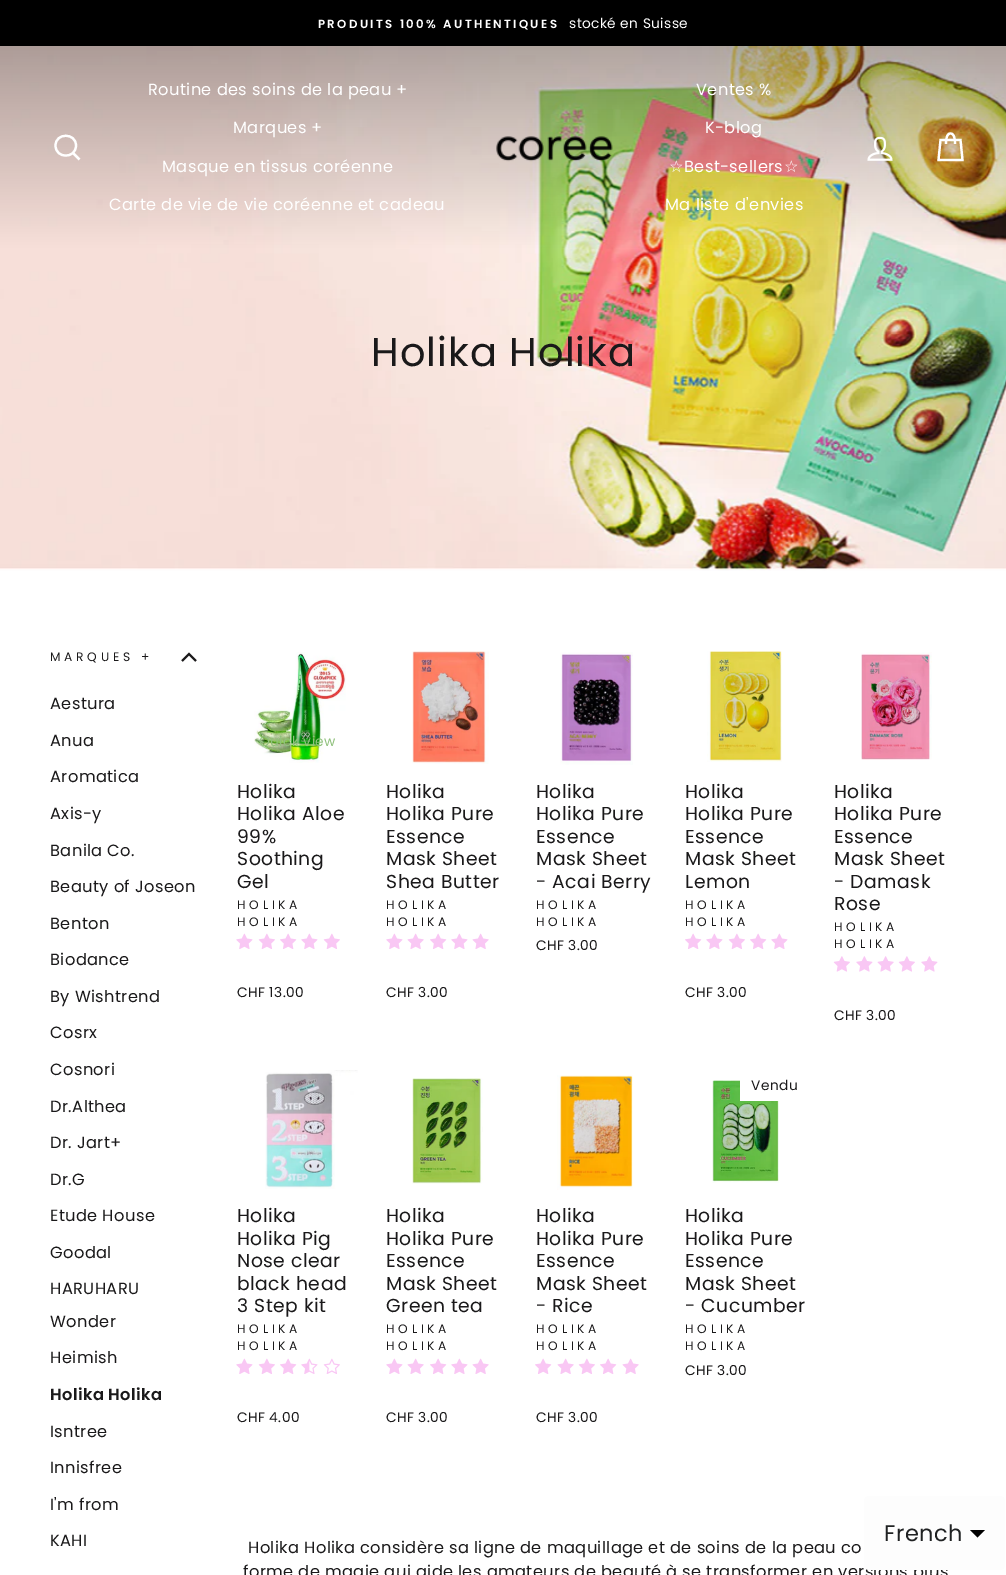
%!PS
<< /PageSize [1006 1575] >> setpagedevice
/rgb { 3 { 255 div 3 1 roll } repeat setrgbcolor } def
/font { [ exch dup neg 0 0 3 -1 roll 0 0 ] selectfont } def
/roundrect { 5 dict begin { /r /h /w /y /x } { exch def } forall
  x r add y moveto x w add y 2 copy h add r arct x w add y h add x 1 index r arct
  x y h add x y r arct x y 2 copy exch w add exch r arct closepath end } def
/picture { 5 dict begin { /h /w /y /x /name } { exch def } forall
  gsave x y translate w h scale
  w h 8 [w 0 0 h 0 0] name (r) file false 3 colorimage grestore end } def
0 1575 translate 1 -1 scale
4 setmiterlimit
255 255 255 rgb
0 0 1006 1575 rectfill
0 0 0 rgb
0 0 1006 46 rectfill
(img_03.rgb) 0 46 1006 525 picture
255 255 255 rgb
2.2 setlinewidth
76 145.5 moveto 0 13.5 -20.5 13.5 -20.5 0 rcurveto 0 -13 20.5 -13 20.5 0 rcurveto closepath 79.5 159.5 moveto -6.5 -6.5 rlineto stroke
(img_01.rgb) 496 136 117 26 picture
(img_02.rgb) 867 136 26 25 picture
946 144 moveto 0 -8.5 2 -10.5 4.5 -10.5 rcurveto 2.5 0 4.5 2 4.5 10.5 rcurveto 940.5 140 moveto 20 0 rlineto 2 20 rlineto -24 0 rlineto closepath stroke
26 25 26 rgb
2.1 setlinewidth
182 661 moveto 7 -7 rlineto 7 7 rlineto stroke
(img_04.rgb) 254 652 92 111 picture
(img_05.rgb) 236 933 17 16 picture
(img_06.rgb) 258 933 17 16 picture
(img_07.rgb) 280 933 17 16 picture
(img_05.rgb) 301 933 17 16 picture
(img_06.rgb) 323 933 17 16 picture
(img_08.rgb) 412 651 77 113 picture
(img_05.rgb) 386 933 17 16 picture
(img_09.rgb) 407 933 17 16 picture
(img_07.rgb) 430 933 17 16 picture
(img_05.rgb) 451 933 17 16 picture
(img_09.rgb) 472 933 17 16 picture
(img_10.rgb) 560 652 73 113 picture
(img_11.rgb) 707 651 75 111 picture
(img_07.rgb) 685 933 17 16 picture
(img_05.rgb) 706 933 17 16 picture
(img_06.rgb) 728 933 17 16 picture
(img_07.rgb) 750 933 17 16 picture
(img_05.rgb) 771 933 17 16 picture
(img_12.rgb) 861 652 71 108 picture
(img_13.rgb) 833 956 17 16 picture
(img_14.rgb) 856 956 17 16 picture
(img_15.rgb) 877 956 17 16 picture
(img_13.rgb) 898 956 17 16 picture
(img_14.rgb) 921 956 17 16 picture
(img_16.rgb) 265 1070 93 119 picture
(img_05.rgb) 236 1358 17 16 picture
(img_06.rgb) 258 1358 17 16 picture
(img_07.rgb) 280 1358 17 16 picture
(img_17.rgb) 301 1358 17 16 picture
(img_18.rgb) 323 1358 17 16 picture
(img_19.rgb) 412 1078 71 106 picture
(img_05.rgb) 386 1358 17 16 picture
(img_09.rgb) 407 1358 17 16 picture
(img_07.rgb) 430 1358 17 16 picture
(img_05.rgb) 451 1358 17 16 picture
(img_09.rgb) 472 1358 17 16 picture
(img_20.rgb) 557 1075 76 115 picture
(img_07.rgb) 535 1358 17 16 picture
(img_09.rgb) 557 1358 17 16 picture
(img_06.rgb) 578 1358 17 16 picture
(img_07.rgb) 600 1358 17 16 picture
(img_09.rgb) 622 1358 17 16 picture
(img_21.rgb) 712 1080 67 103 picture
255 255 255 rgb
740 1080 39 21 rectfill
/Poppins-SemiBold 11.75 font
318 28 moveto 2.35 0 (PRODUITS 100% AUTHENTIQUES) ashow
/Poppins-Regular 13.75 font
569 28 moveto 0.4 0 (stocké en Suisse) ashow
/Poppins-Regular 16.25 font
148 95 moveto 0.4 0 (Routine des soins de la peau +) ashow
233 133 moveto 0.4 0 (Marques +) ashow
162 172 moveto 0.4 0 (Masque en tissus coréenne) ashow
109 210 moveto 0.4 0 (Carte de vie de vie coréenne et cadeau) ashow
696 95 moveto 0.4 0 (Ventes %) ashow
705 133 moveto 0.4 0 (K-blog) ashow
/DejaVuSans-Regular 16.25 font
669 172 moveto 0.4 0 (☆) ashow
/Poppins-Regular 16.25 font
684 172 moveto 0.4 0 (Best-sellers) ashow
/DejaVuSans-Regular 16.25 font
784 172 moveto 0.4 0 (☆) ashow
/Poppins-Regular 16.25 font
665 210 moveto 0.4 0 (Ma liste d'envies) ashow
/Poppins-Regular 40 font
26 25 26 rgb
371 366 moveto 1 0 (Holika Holika) ashow
/Poppins-Regular 12.25 font
50 661 moveto 3.75 0 (MARQUES +) ashow
/Poppins-Regular 16.25 font
50 709 moveto 0.4 0 (Aestura) ashow
50 746 moveto 0.4 0 (Anua) ashow
50 782 moveto 0.4 0 (Aromatica) ashow
50 819 moveto 0.4 0 (Axis-y) ashow
50 856 moveto 0.4 0 (Banila Co.) ashow
50 892 moveto 0.4 0 (Beauty of Joseon) ashow
50 929 moveto 0.4 0 (Benton) ashow
50 965 moveto 0.4 0 (Biodance) ashow
50 1002 moveto 0.4 0 (By Wishtrend) ashow
50 1038 moveto 0.4 0 (Cosrx) ashow
50 1075 moveto 0.4 0 (Cosnori) ashow
50 1112 moveto 0.4 0 (Dr.Althea) ashow
50 1148 moveto 0.4 0 (Dr. Jart+) ashow
50 1185 moveto 0.4 0 (Dr.G) ashow
50 1221 moveto 0.4 0 (Etude House) ashow
50 1258 moveto 0.4 0 (Goodal) ashow
50 1294 moveto 0.4 0 (HARUHARU) ashow
50 1327 moveto 0.4 0 (Wonder) ashow
50 1363 moveto 0.4 0 (Heimish) ashow
/Poppins-SemiBold 16.25 font
50 1400 moveto 0.4 0 (Holika Holika) ashow
/Poppins-Regular 16.25 font
50 1437 moveto 0.4 0 (Isntree) ashow
50 1473 moveto 0.4 0 (Innisfree) ashow
50 1510 moveto 0.4 0 (I'm from) ashow
50 1546 moveto 0.4 0 (KAHI) ashow
/Poppins-Regular 13.75 font
144 193 125 rgb
259 746 moveto 0.4 0 (Quick view) ashow
/Poppins-Regular 18.75 font
26 25 26 rgb
237 798 moveto 0.5 0 (Holika) ashow
237 820 moveto 0.5 0 (Holika Aloe) ashow
237 843 moveto 0.5 0 (99%) ashow
237 865 moveto 0.5 0 (Soothing) ashow
237 888 moveto 0.5 0 (Gel) ashow
/Poppins-Regular 12.25 font
237 909 moveto 3.75 0 (HOLIKA) ashow
237 926 moveto 3.75 0 (HOLIKA) ashow
/Poppins-Regular 13.75 font
237 997 moveto 0.4 0 (CHF 13.00) ashow
/Poppins-Regular 18.75 font
386 798 moveto 0.5 0 (Holika) ashow
386 820 moveto 0.5 0 (Holika Pure) ashow
386 843 moveto 0.5 0 (Essence) ashow
386 865 moveto 0.5 0 (Mask Sheet) ashow
386 888 moveto 0.5 0 (Shea Butter) ashow
/Poppins-Regular 12.25 font
386 909 moveto 3.75 0 (HOLIKA) ashow
386 926 moveto 3.75 0 (HOLIKA) ashow
/Poppins-Regular 13.75 font
386 997 moveto 0.4 0 (CHF 3.00) ashow
/Poppins-Regular 18.75 font
536 798 moveto 0.5 0 (Holika) ashow
536 820 moveto 0.5 0 (Holika Pure) ashow
536 843 moveto 0.5 0 (Essence) ashow
536 865 moveto 0.5 0 (Mask Sheet) ashow
536 888 moveto 0.5 0 (- Acai Berry) ashow
/Poppins-Regular 12.25 font
536 909 moveto 3.75 0 (HOLIKA) ashow
536 926 moveto 3.75 0 (HOLIKA) ashow
/Poppins-Regular 13.75 font
536 950 moveto 0.4 0 (CHF 3.00) ashow
/Poppins-Regular 18.75 font
685 798 moveto 0.5 0 (Holika) ashow
685 820 moveto 0.5 0 (Holika Pure) ashow
685 843 moveto 0.5 0 (Essence) ashow
685 865 moveto 0.5 0 (Mask Sheet) ashow
685 888 moveto 0.5 0 (Lemon) ashow
/Poppins-Regular 12.25 font
685 909 moveto 3.75 0 (HOLIKA) ashow
685 926 moveto 3.75 0 (HOLIKA) ashow
/Poppins-Regular 13.75 font
685 997 moveto 0.4 0 (CHF 3.00) ashow
/Poppins-Regular 18.75 font
834 798 moveto 0.5 0 (Holika) ashow
834 820 moveto 0.5 0 (Holika Pure) ashow
834 843 moveto 0.5 0 (Essence) ashow
834 865 moveto 0.5 0 (Mask Sheet) ashow
834 888 moveto 0.5 0 (- Damask) ashow
834 910 moveto 0.5 0 (Rose) ashow
/Poppins-Regular 12.25 font
834 931 moveto 3.75 0 (HOLIKA) ashow
834 948 moveto 3.75 0 (HOLIKA) ashow
/Poppins-Regular 13.75 font
834 1020 moveto 0.4 0 (CHF 3.00) ashow
/Poppins-Regular 18.75 font
237 1222 moveto 0.5 0 (Holika) ashow
237 1245 moveto 0.5 0 (Holika Pig) ashow
237 1267 moveto 0.5 0 (Nose clear) ashow
237 1290 moveto 0.5 0 (black head) ashow
237 1312 moveto 0.5 0 (3 Step kit) ashow
/Poppins-Regular 12.25 font
237 1333 moveto 3.75 0 (HOLIKA) ashow
237 1350 moveto 3.75 0 (HOLIKA) ashow
/Poppins-Regular 13.75 font
237 1422 moveto 0.4 0 (CHF 4.00) ashow
/Poppins-Regular 18.75 font
386 1222 moveto 0.5 0 (Holika) ashow
386 1245 moveto 0.5 0 (Holika Pure) ashow
386 1267 moveto 0.5 0 (Essence) ashow
386 1290 moveto 0.5 0 (Mask Sheet) ashow
386 1312 moveto 0.5 0 (Green tea) ashow
/Poppins-Regular 12.25 font
386 1333 moveto 3.75 0 (HOLIKA) ashow
386 1350 moveto 3.75 0 (HOLIKA) ashow
/Poppins-Regular 13.75 font
386 1422 moveto 0.4 0 (CHF 3.00) ashow
/Poppins-Regular 18.75 font
536 1222 moveto 0.5 0 (Holika) ashow
536 1245 moveto 0.5 0 (Holika Pure) ashow
536 1267 moveto 0.5 0 (Essence) ashow
536 1290 moveto 0.5 0 (Mask Sheet) ashow
536 1312 moveto 0.5 0 (- Rice) ashow
/Poppins-Regular 12.25 font
536 1333 moveto 3.75 0 (HOLIKA) ashow
536 1350 moveto 3.75 0 (HOLIKA) ashow
/Poppins-Regular 13.75 font
536 1422 moveto 0.4 0 (CHF 3.00) ashow
751 1090 moveto 0.4 0 (Vendu) ashow
/Poppins-Regular 18.75 font
685 1222 moveto 0.5 0 (Holika) ashow
685 1245 moveto 0.5 0 (Holika Pure) ashow
685 1267 moveto 0.5 0 (Essence) ashow
685 1290 moveto 0.5 0 (Mask Sheet) ashow
685 1312 moveto 0.5 0 (- Cucumber) ashow
/Poppins-Regular 12.25 font
685 1333 moveto 3.75 0 (HOLIKA) ashow
685 1350 moveto 3.75 0 (HOLIKA) ashow
/Poppins-Regular 13.75 font
685 1375 moveto 0.4 0 (CHF 3.00) ashow
/Poppins-Regular 16.25 font
248 1553 moveto 0.4 0 (Holika Holika considère sa ligne de maquillage et de soins de la peau co) ashow
243 1577 moveto 0.4 0 (forme de magie qui aide les amateurs de beauté à se transformer en versions plus) ashow
253 253 253 rgb
864 1496 141 74 5 roundrect fill
/Poppins-Regular 22.5 font
32 34 35 rgb
884 1541 moveto 0.4 0 (French) ashow
0 0 0 rgb
970 1530 moveto 15 0 rlineto -7.5 7.5 rlineto closepath fill
showpage
